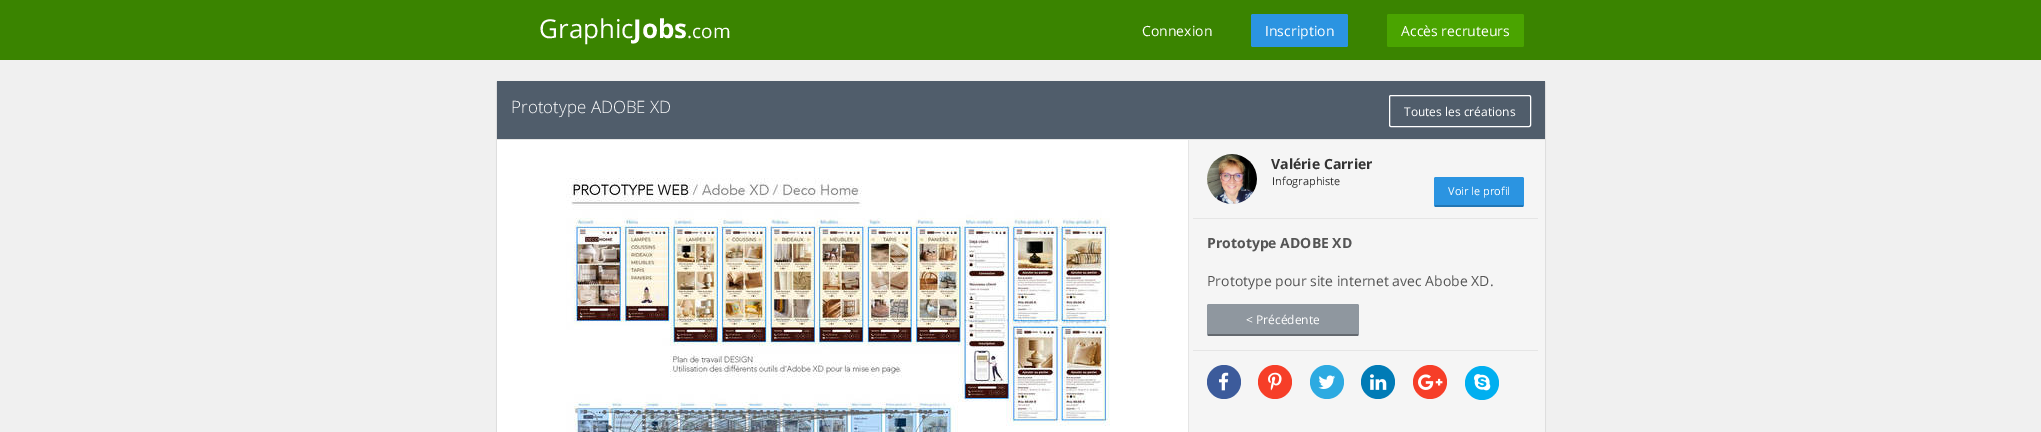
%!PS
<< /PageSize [2041 432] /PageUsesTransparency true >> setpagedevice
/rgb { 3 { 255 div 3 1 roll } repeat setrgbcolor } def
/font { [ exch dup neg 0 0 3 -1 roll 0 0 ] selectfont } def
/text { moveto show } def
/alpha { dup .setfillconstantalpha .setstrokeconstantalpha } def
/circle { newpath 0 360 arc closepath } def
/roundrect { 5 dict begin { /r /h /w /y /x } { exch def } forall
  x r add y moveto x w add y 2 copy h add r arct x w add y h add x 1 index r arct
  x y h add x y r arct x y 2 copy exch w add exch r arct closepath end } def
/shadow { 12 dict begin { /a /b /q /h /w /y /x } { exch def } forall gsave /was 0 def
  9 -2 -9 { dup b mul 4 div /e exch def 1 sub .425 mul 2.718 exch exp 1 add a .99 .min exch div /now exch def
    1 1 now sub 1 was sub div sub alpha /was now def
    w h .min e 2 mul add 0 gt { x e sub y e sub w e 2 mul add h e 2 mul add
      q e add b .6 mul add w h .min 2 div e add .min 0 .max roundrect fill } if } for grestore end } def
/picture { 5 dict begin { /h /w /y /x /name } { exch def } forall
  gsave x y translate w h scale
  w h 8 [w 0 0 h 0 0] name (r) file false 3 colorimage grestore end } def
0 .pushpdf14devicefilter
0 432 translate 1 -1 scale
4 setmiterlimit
240 240 240 rgb
0 0 2041 432 rectfill
58 132 0 rgb
0 0 2041 60 rectfill
43 148 225 rgb
1251 14 97 33 2 roundrect fill
74 164 0 rgb
1387 14 137 33 2 roundrect fill
0 0 0 rgb
497 82 1048 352 0 0.5 0.3 shadow
80 93 107 rgb
497 81 1048 58 rectfill
229 229 229 rgb
497 139 1048 1 rectfill
255 255 255 rgb
1389.5 95.5 141 31 1.5 roundrect stroke
245 245 245 rgb
1189 140 356 292 rectfill
255 255 255 rgb
497 140 691 292 rectfill
229 229 229 rgb
1188 140 1 292 rectfill
(img_01.rgb) 566 178 544 254 picture
(img_02.rgb) 1207 154 50 50 picture
43 148 225 rgb
1434 177 90 30 2 roundrect fill
0.2 alpha
0 0 0 rgb
1435 205 88 2 rectfill
1 alpha
229 229 229 rgb
1193 218 345 1 rectfill
143 151 159 rgb
1207 304 152 32 2 roundrect fill
0.3 alpha
0 0 0 rgb
1208 334 150 2 rectfill
1 alpha
229 229 229 rgb
1193 350 345 1 rectfill
60 91 155 rgb
1224 382 17 circle fill
(img_03.rgb) 1219 372 10 19 picture
246 62 40 rgb
1275 382 17 circle fill
(img_04.rgb) 1268 372 14 19 picture
45 170 225 rgb
1327 382 17 circle fill
(img_05.rgb) 1318 375 17 14 picture
0 123 182 rgb
1378 382 17 circle fill
(img_06.rgb) 1370 374 17 16 picture
246 62 40 rgb
1430 382 17 circle fill
(img_07.rgb) 1418 374 25 16 picture
0 175 240 rgb
1482 383 17 circle fill
(img_08.rgb) 1474 374 17 17 picture
/OpenSans-Regular 26 font
255 255 255 rgb
(Graphic) 539 38 text
/OpenSans-Bold 26 font
(Jobs) 633 38 text
/OpenSans-Regular 19 font
(.com) 687 38 text
/OpenSans-Regular 14 font
(Connexion) 1142 36 text
(Inscription) 1265 36 text
(Accès recruteurs) 1401 36 text
/OpenSans-Light 17 font
(Prototype ADOBE XD) 511 113 text
/OpenSans-Regular 12 font
(Toutes les créations) 1404 116 text
/OpenSans-Bold 14 font
51 51 51 rgb
(Valérie Carrier) 1271 169 text
/OpenSans-Regular 11 font
(Infographiste) 1272 185 text
255 255 255 rgb
(Voir le profil) 1448 195 text
/OpenSans-Bold 14 font
85 85 85 rgb
(Prototype ADOBE XD) 1207 248 text
/OpenSans-Regular 14 font
(Prototype pour site internet avec Abobe XD.) 1207 286 text
/OpenSans-Regular 12 font
255 255 255 rgb
(< Précédente) 1246 324 text
.poppdf14devicefilter showpage
